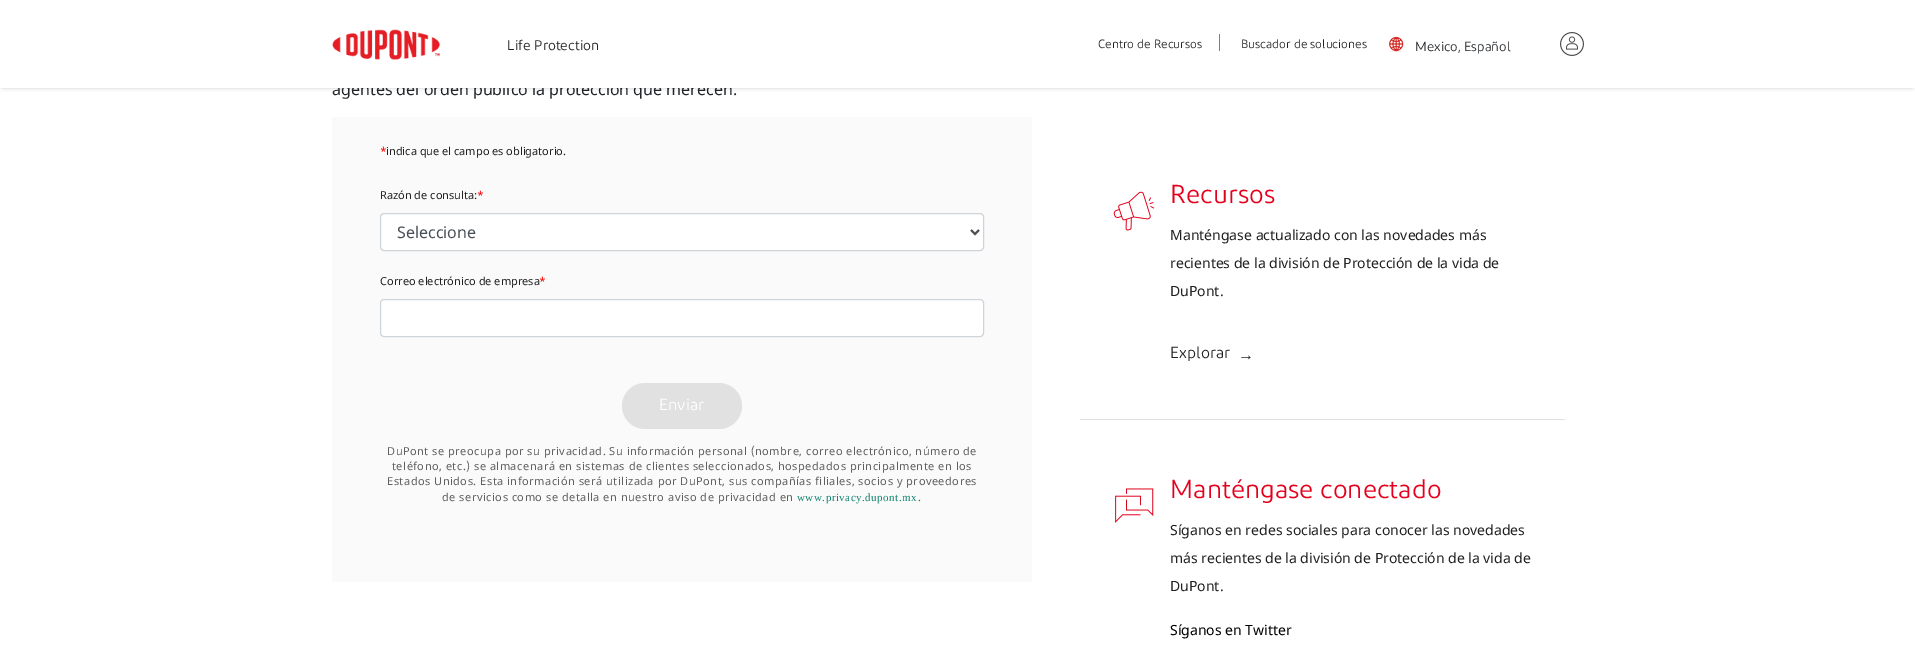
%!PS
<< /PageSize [1915 658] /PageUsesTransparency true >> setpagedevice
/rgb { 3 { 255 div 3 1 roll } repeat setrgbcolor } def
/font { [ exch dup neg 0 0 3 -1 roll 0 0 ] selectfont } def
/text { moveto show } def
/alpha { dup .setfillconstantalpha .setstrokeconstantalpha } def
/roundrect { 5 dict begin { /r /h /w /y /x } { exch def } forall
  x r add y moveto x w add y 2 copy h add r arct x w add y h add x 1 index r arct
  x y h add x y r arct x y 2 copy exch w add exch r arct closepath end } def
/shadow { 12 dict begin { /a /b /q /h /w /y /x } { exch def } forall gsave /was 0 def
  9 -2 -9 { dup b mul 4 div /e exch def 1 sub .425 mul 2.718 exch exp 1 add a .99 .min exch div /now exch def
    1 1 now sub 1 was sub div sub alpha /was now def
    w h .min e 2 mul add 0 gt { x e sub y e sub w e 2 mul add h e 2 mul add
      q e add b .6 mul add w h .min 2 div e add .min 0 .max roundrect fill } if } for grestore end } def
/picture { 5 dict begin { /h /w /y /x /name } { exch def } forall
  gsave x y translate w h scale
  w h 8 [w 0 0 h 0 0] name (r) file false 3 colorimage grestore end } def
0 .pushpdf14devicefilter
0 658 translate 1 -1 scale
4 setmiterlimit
255 255 255 rgb
0 0 1915 658 rectfill
0 0 0 rgb
3 5 1909 82 0 2.5 0.3 shadow
250 250 250 rgb
332 117 700 465 rectfill
255 255 255 rgb
380.5 213.5 603 37 3.5 roundrect gsave fill grestore
206 212 218 rgb
stroke
73 80 87 rgb
2 setlinewidth
971 230 moveto 4 4 rlineto 4 -4 rlineto stroke
255 255 255 rgb
380.5 299.5 603 37 3.5 roundrect gsave fill grestore
206 212 218 rgb
1 setlinewidth
stroke
225 225 225 rgb
622 383 120 46 23 roundrect fill
(img_04.rgb) 1113 191 42 40 picture
1080 419 485 1 rectfill
(img_05.rgb) 1115 488 39 35 picture
/NotoSans-Regular 16 font
33 37 41 rgb
(agentes del orden público la protección que merecen.) 332 95 text
255 255 255 rgb
0 0 1915 88 rectfill
(img_01.rgb) 332 29 108 31 picture
/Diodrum-Regular 13.25 font
33 37 41 rgb
(Mexico, Español) 1415 51 text
(img_02.rgb) 1389 36 15 16 picture
(img_03.rgb) 1560 32 24 24 picture
/Diodrum-Regular 12 font
33 33 33 rgb
(Buscador de soluciones) 1241 48 text
(Centro de Recursos) 1098 48 text
127 128 129 rgb
1219 34 1 17 rectfill
/Diodrum-Regular 14 font
33 33 33 rgb
(Life Protection) 507 50 text
/NotoSans-Regular 11 font
255 0 0 rgb
(*) 380 155 text
33 33 33 rgb
(indica que el campo es obligatorio.) 386 155 text
(Razón de consulta:) 380 199 text
255 0 0 rgb
(*) 477 199 text
/NotoSans-Regular 16 font
73 80 87 rgb
(Seleccione) 397 238 text
/NotoSans-Regular 11 font
33 33 33 rgb
(Correo electrónico de empresa) 380 285 text
255 0 0 rgb
(*) 539 285 text
/Diodrum-Regular 16 font
255 255 255 rgb
(Enviar) 659 410 text
/NotoSans-Regular 11 font
96 96 96 rgb
387 455 moveto 0.5 0 (DuPont se preocupa por su privacidad. Su información personal \(nombre, correo electrónico, número de) ashow
392 470 moveto 0.5 0 (teléfono, etc.\) se almacenará en sistemas de clientes seleccionados, hospedados principalmente en los) ashow
387 485 moveto 0.5 0 (Estados Unidos. Esta información será utilizada por DuPont, sus compañías filiales, socios y proveedores) ashow
442 501 moveto 0.5 0 (de servicios como se detalla en nuestro aviso de privacidad en) ashow
/LiberationSerif-Regular 11 font
18 131 112 rgb
797 501 moveto 0.5 0 (www.privacy.dupont.mx) ashow
/NotoSans-Regular 11 font
96 96 96 rgb
918 501 moveto 0.5 0 (.) ashow
/Diodrum-Regular 26 font
228 0 28 rgb
(Recursos) 1170 203 text
/NotoSans-Regular 14 font
33 33 33 rgb
(Manténgase actualizado con las novedades más) 1170 240 text
(recientes de la división de Protección de la vida de) 1170 268 text
(DuPont.) 1170 296 text
/Diodrum-Regular 16 font
(Explorar) 1170 358 text
/LiberationSerif-Regular 16 font
(→) 1238 360 text
/Diodrum-Regular 26 font
228 0 28 rgb
(Manténgase conectado) 1170 498 text
/NotoSans-Regular 14 font
33 33 33 rgb
(Síganos en redes sociales para conocer las novedades) 1170 535 text
(más recientes de la división de Protección de la vida de) 1170 563 text
(DuPont.) 1170 591 text
0 0 0 rgb
(Síganos en Twitter) 1170 635 text
.poppdf14devicefilter showpage
